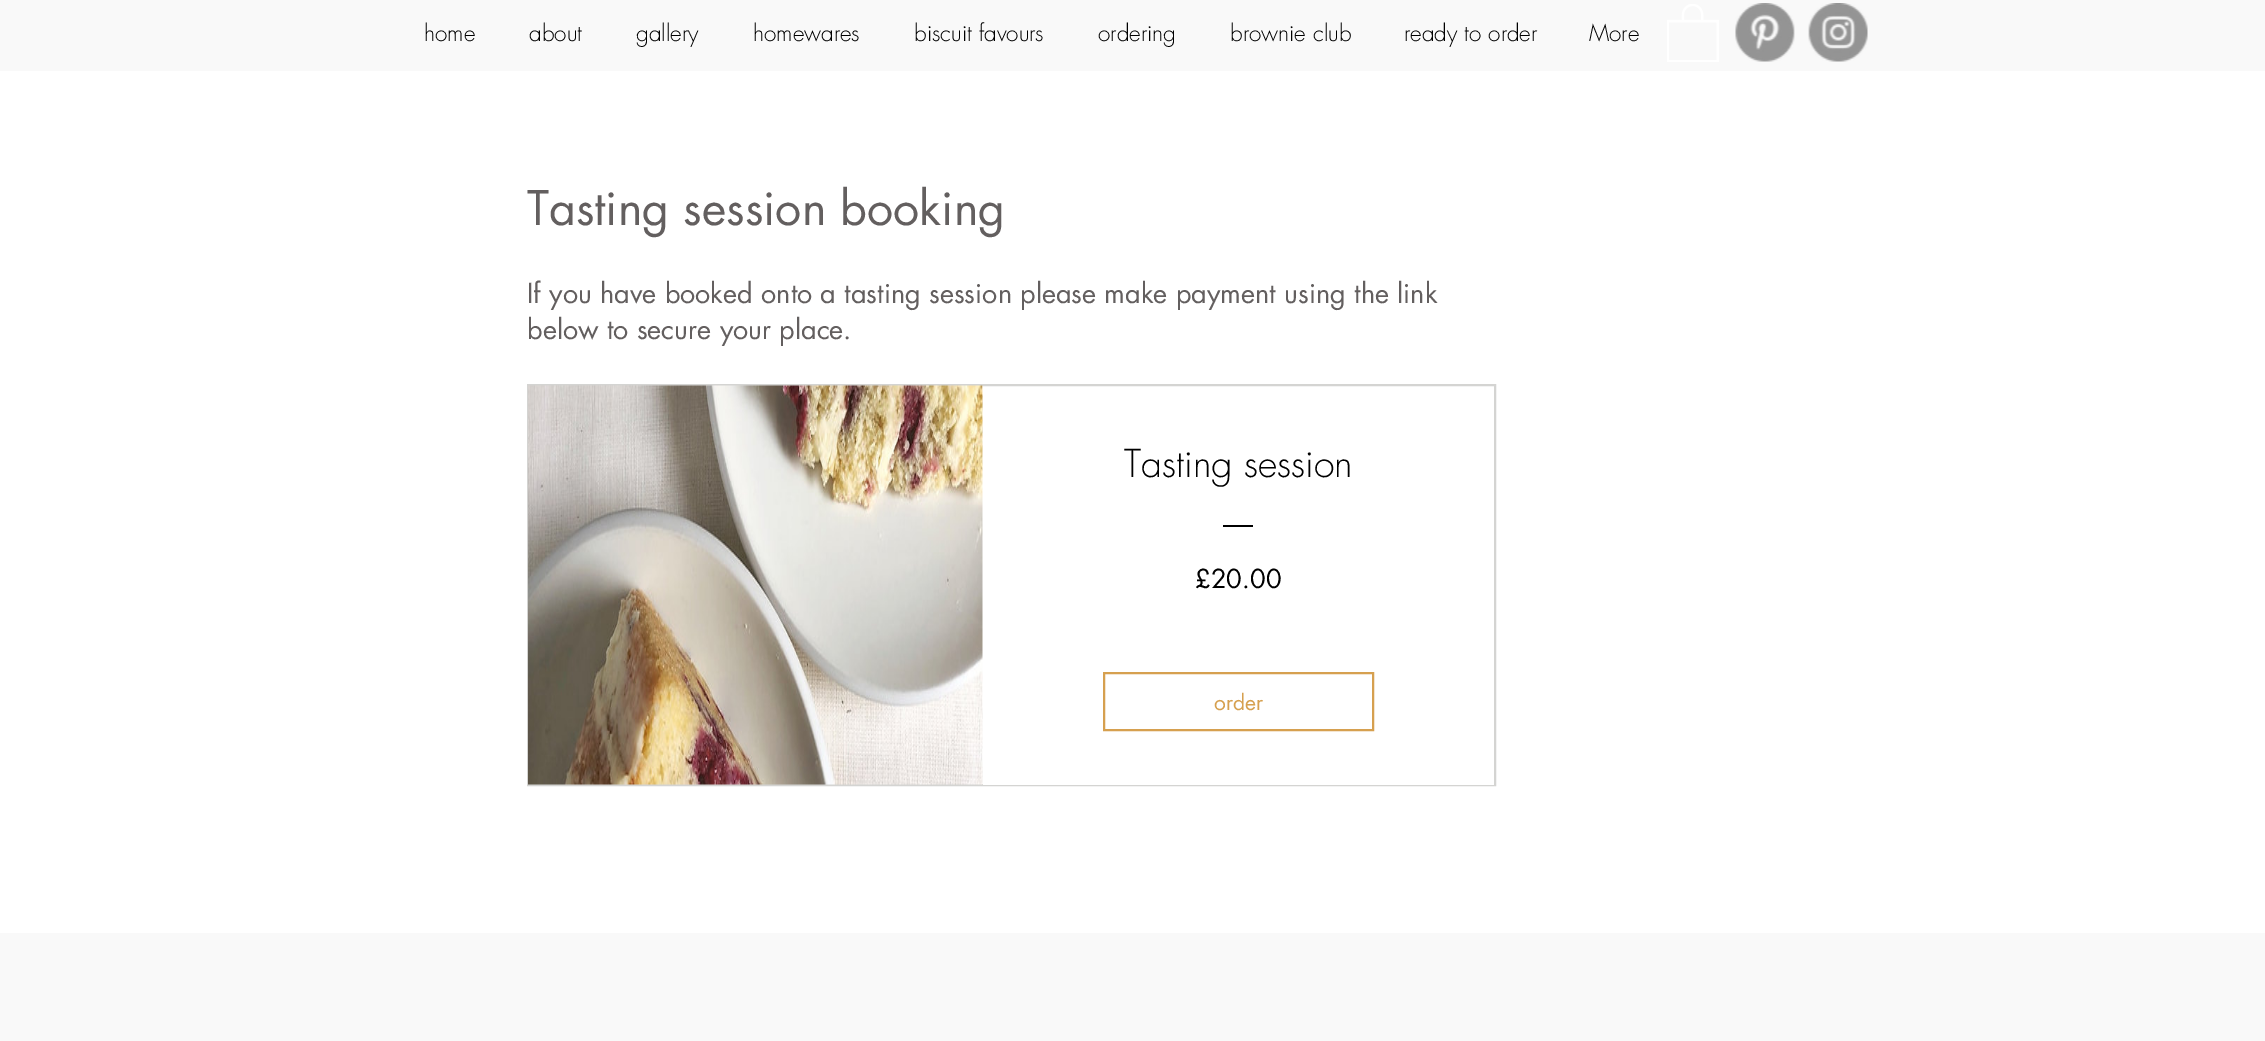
%!PS
<< /PageSize [2265 1041] >> setpagedevice
/rgb { 3 { 255 div 3 1 roll } repeat setrgbcolor } def
/font { [ exch dup neg 0 0 3 -1 roll 0 0 ] selectfont } def
/text { moveto show } def
/picture { 5 dict begin { /h /w /y /x /name } { exch def } forall
  gsave x y translate w h scale
  w h 8 [w 0 0 h 0 0] name (r) file false 3 colorimage grestore end } def
0 1041 translate 1 -1 scale
4 setmiterlimit
255 255 255 rgb
0 0 2265 1041 rectfill
249 249 249 rgb
0 0 2265 71 rectfill
(img_01.rgb) 1667 4 52 58 picture
(img_02.rgb) 1735 3 60 59 picture
(img_03.rgb) 1808 3 60 59 picture
212 212 210 rgb
2 setlinewidth
528 385 967 400 rectstroke
(img_04.rgb) 528 385 455 400 picture
255 255 255 rgb
983 784 511 1 rectfill
0 0 0 rgb
1223 525 30 2 rectfill
214 160 79 rgb
1104 673 269 57 rectstroke
249 249 249 rgb
0 933 2265 108 rectfill
/futura-Light 22.5 font
0 0 0 rgb
(home) 424 41 text
(about) 529 41 text
(gallery) 636 41 text
(homewares) 753 41 text
(biscuit favours) 914 41 text
(ordering) 1098 41 text
(brownie club) 1230 41 text
(ready to order) 1404 41 text
(More) 1589 41 text
/futura-Regular 46.5 font
99 95 95 rgb
(Tasting session booking) 527 225 text
/futura-Regular 27 font
(If you have booked onto a tasting session please make payment using the link) 527 303 text
(below to secure your place.) 527 339 text
/futura-Light 37.5 font
0 0 0 rgb
(Tasting session) 1124 477 text
/futura-Regular 25.5 font
(£20.00) 1195 588 text
/futura-Regular 21 font
214 160 79 rgb
(order) 1214 710 text
showpage
